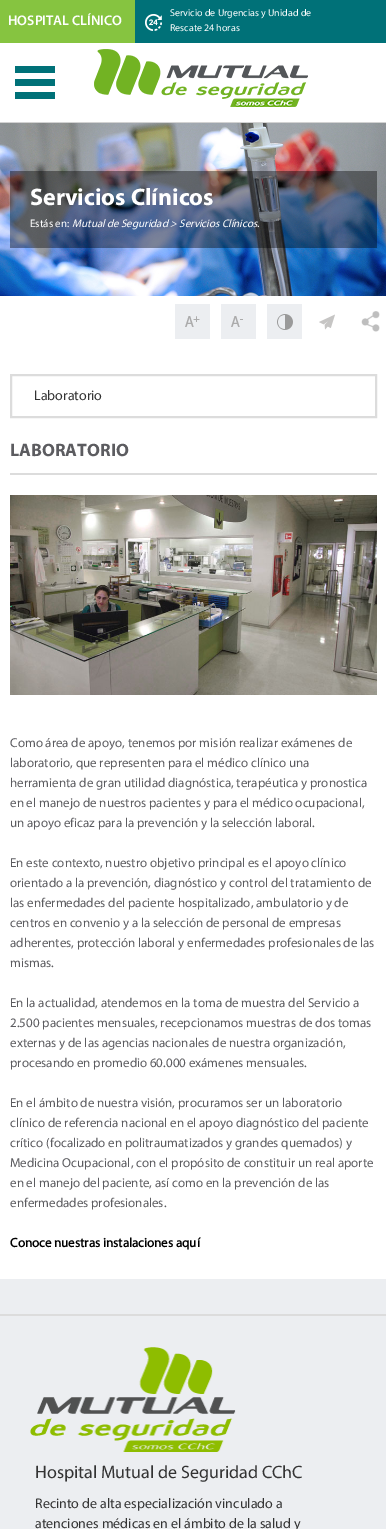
%!PS
<< /PageSize [386 1529] /PageUsesTransparency true >> setpagedevice
/rgb { 3 { 255 div 3 1 roll } repeat setrgbcolor } def
/font { [ exch dup neg 0 0 3 -1 roll 0 0 ] selectfont } def
/text { moveto show } def
/alpha { dup .setfillconstantalpha .setstrokeconstantalpha } def
/picture { 5 dict begin { /h /w /y /x /name } { exch def } forall
  gsave x y translate w h scale
  w h 8 [w 0 0 h 0 0] name (r) file false 3 colorimage grestore end } def
0 .pushpdf14devicefilter
0 1529 translate 1 -1 scale
4 setmiterlimit
255 255 255 rgb
0 0 386 1529 rectfill
0 113 120 rgb
135 0 251 43 rectfill
134 196 64 rgb
0 0 135 43 rectfill
(img_01.rgb) 145 14 17 17 picture
210 210 210 rgb
0 122 386 1 rectfill
0 113 120 rgb
15 66 40 7 rectfill
15 79 40 7 rectfill
15 92 40 7 rectfill
(img_02.rgb) 94 49 214 58 picture
(img_03.rgb) 0 123 386 173 picture
0.4 alpha
0 0 0 rgb
10 171 367 77 rectfill
1 alpha
236 238 241 rgb
175 304 35 35 rectfill
(img_04.rgb) 185 316 15 11 picture
221 304 35 35 rectfill
(img_05.rgb) 231 316 12 11 picture
267 304 35 35 rectfill
(img_06.rgb) 277 314 16 16 picture
(img_07.rgb) 319 314 16 16 picture
(img_08.rgb) 361 311 19 21 picture
220 220 220 rgb
2 setlinewidth
11 375 365 42 rectstroke
10 473 367 2 rectfill
(img_09.rgb) 10 495 367 200 picture
236 238 241 rgb
0 1279 386 250 rectfill
220 220 220 rgb
0 1314 386 2 rectfill
(img_10.rgb) 30 1347 206 105 picture
/Myriad-SemiBold 14 font
255 255 255 rgb
(HOSPITAL CLÍNICO) 8 25 text
/Myriad-Regular 10 font
(Servicio de Urgencias y Unidad de) 170 16 text
(Rescate 24 horas) 170 31 text
/Myriad-Bold 24 font
(Servicios Clínicos) 30 205 text
/Myriad-Regular 11 font
(Estás en:) 30 227 text
/Myriad-Italic 11 font
(Mutual de Seguridad > Servicios Clínicos.) 72 227 text
/Myriad-Regular 14 font
51 51 51 rgb
(Laboratorio) 34 400 text
/Myriad-Bold 18 font
92 92 96 rgb
(LABORATORIO) 10 456 text
/Myriad-Regular 13 font
(Como área de apoyo, tenemos por misión realizar exámenes de) 10 747 text
(laboratorio, que representen para el médico clínico una) 10 767 text
(herramienta de gran utilidad diagnóstica, terapéutica y pronostica) 10 787 text
(en el manejo de nuestros pacientes y para el médico ocupacional,) 10 807 text
(un apoyo eficaz para la prevención y la selección laboral.) 10 827 text
(En este contexto, nuestro objetivo principal es el apoyo clínico) 10 867 text
(orientado a la prevención, diagnóstico y control del tratamiento de) 10 887 text
(las enfermedades del paciente hospitalizado, ambulatorio y de) 10 907 text
(centros en convenio y a la selección de personal de empresas) 10 927 text
(adherentes, protección laboral y enfermedades profesionales de las) 10 947 text
(mismas.) 10 967 text
(En la actualidad, atendemos en la toma de muestra del Servicio a) 10 1007 text
(2.500 pacientes mensuales, recepcionamos muestras de dos tomas) 10 1027 text
(externas y de las agencias nacionales de nuestra organización,) 10 1047 text
(procesando en promedio 60.000 exámenes mensuales.) 10 1067 text
(En el ámbito de nuestra visión, procuramos ser un laboratorio) 10 1107 text
(clínico de referencia nacional en el apoyo diagnóstico del paciente) 10 1127 text
(crítico \(focalizado en politraumatizados y grandes quemados\) y) 10 1147 text
(Medicina Ocupacional, con el propósito de constituir un real aporte) 10 1167 text
(en el manejo del paciente, así como en la prevención de las) 10 1187 text
(enfermedades profesionales.) 10 1207 text
/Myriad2-Bold 13 font
0 0 0 rgb
(Conoce nuestras instalaciones aquí) 10 1247 text
/Myriad-Regular 18 font
51 51 51 rgb
(Hospital Mutual de Seguridad CChC) 35 1478 text
/Myriad-Regular 14 font
(Recinto de alta especialización vinculado a) 35 1508 text
(atenciones médicas en el ámbito de la salud y) 35 1528 text
.poppdf14devicefilter showpage
